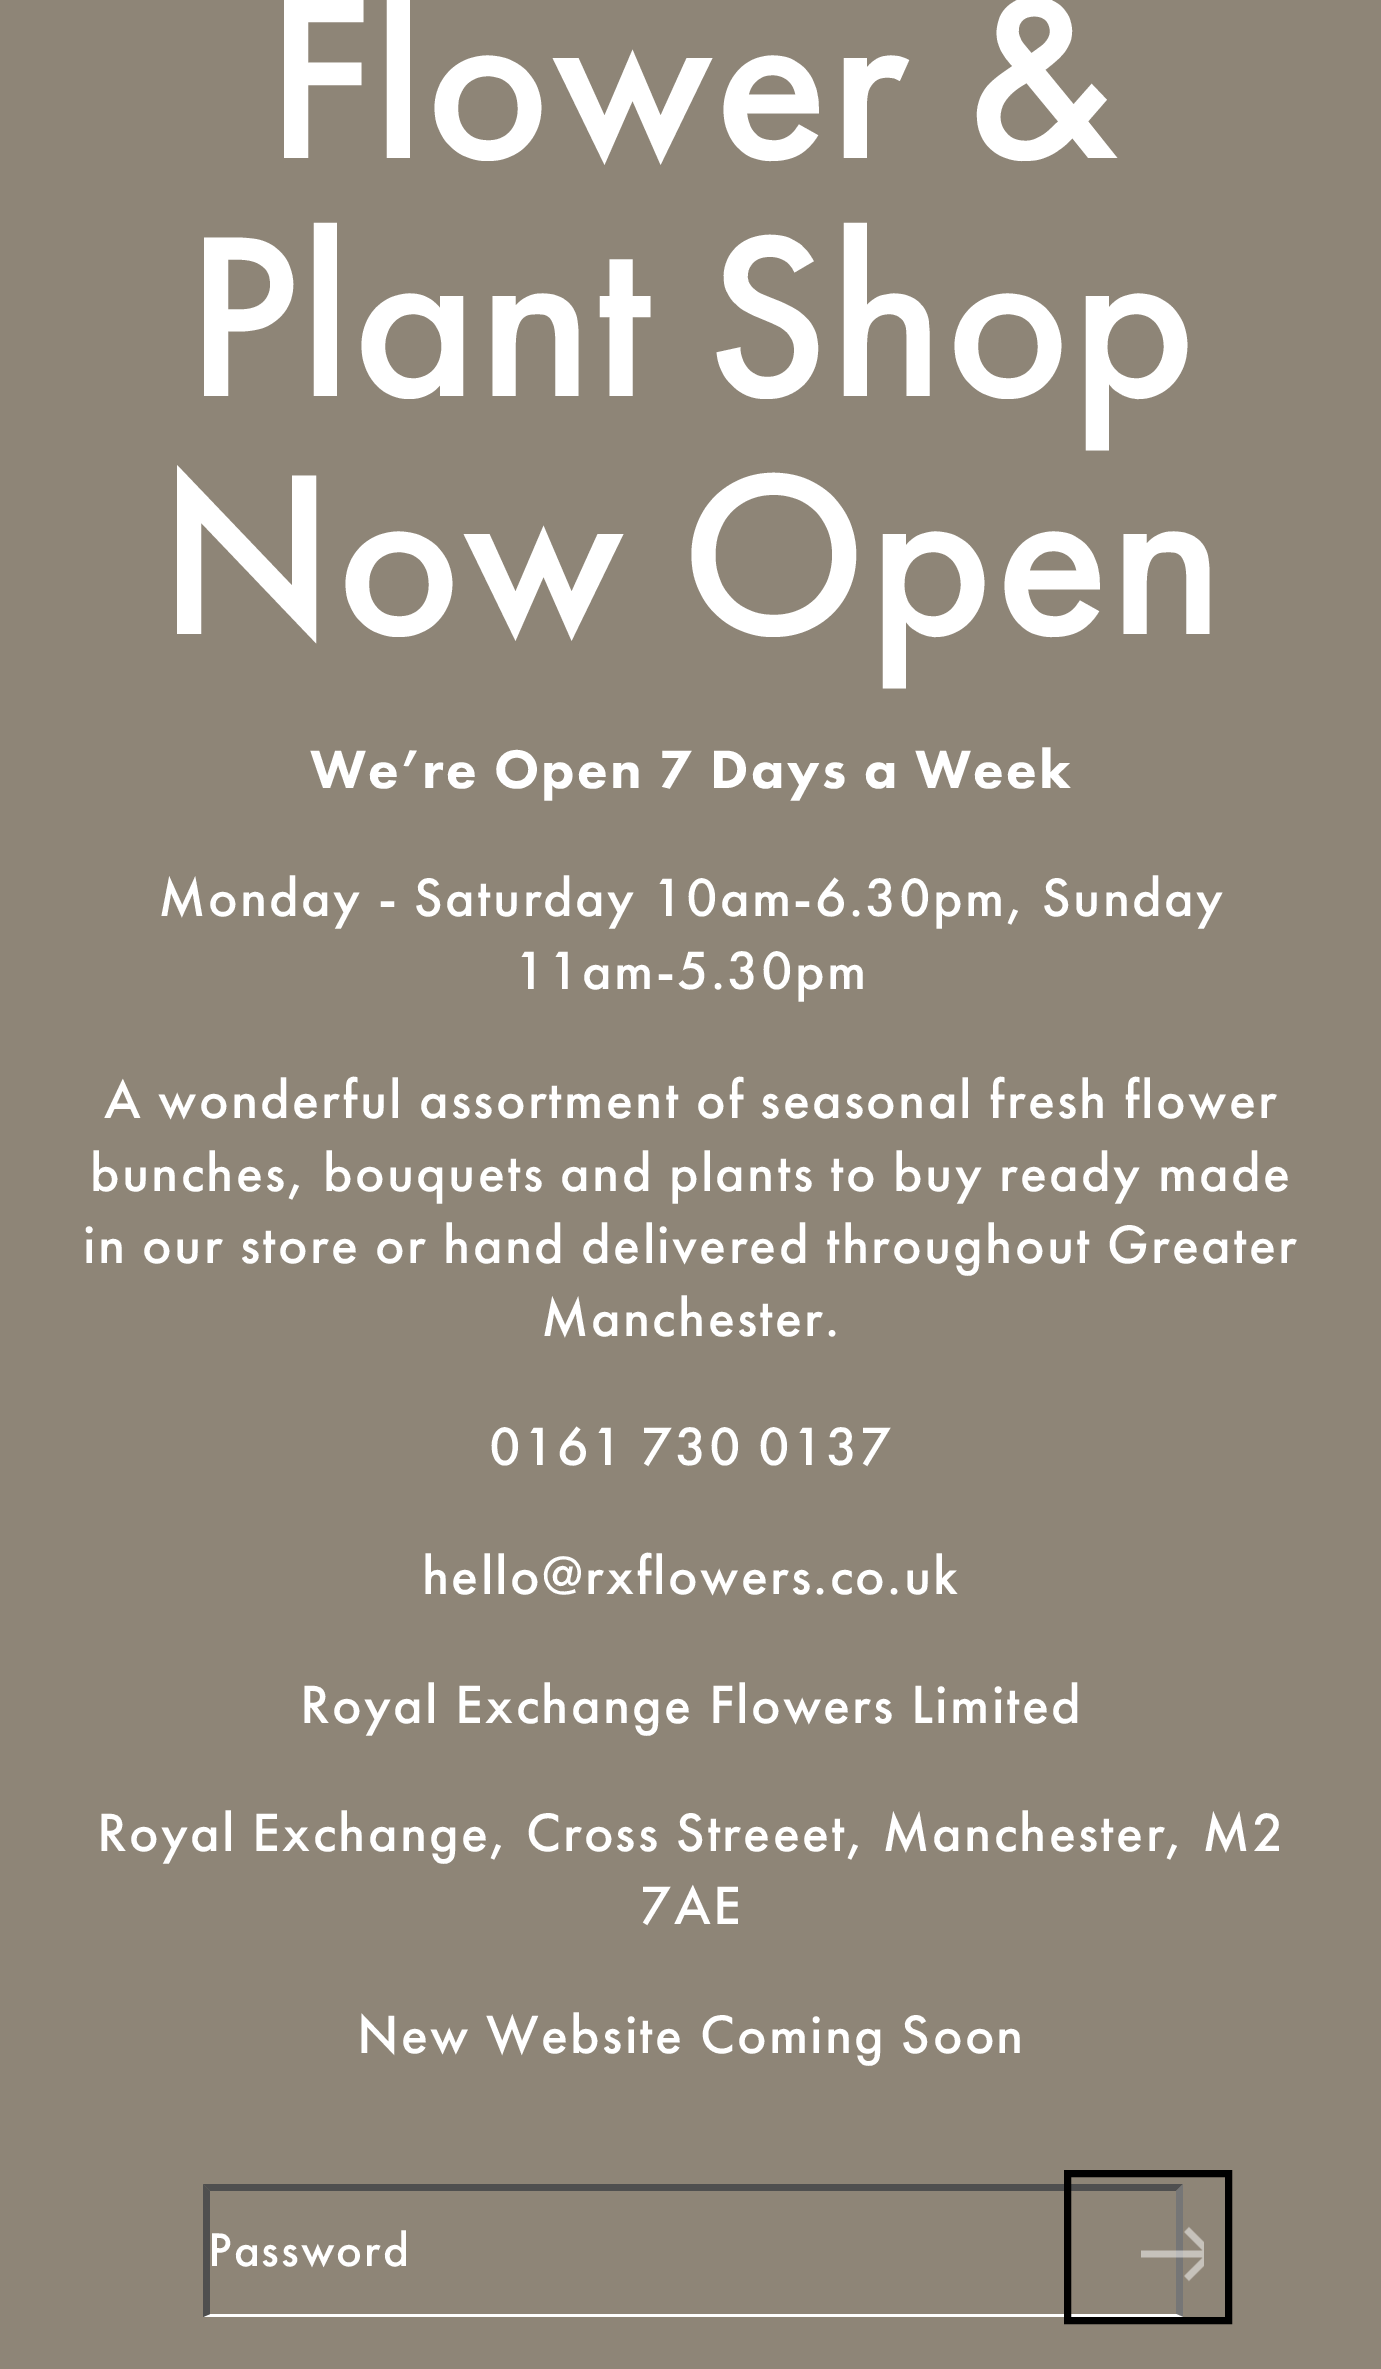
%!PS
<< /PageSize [1381 2369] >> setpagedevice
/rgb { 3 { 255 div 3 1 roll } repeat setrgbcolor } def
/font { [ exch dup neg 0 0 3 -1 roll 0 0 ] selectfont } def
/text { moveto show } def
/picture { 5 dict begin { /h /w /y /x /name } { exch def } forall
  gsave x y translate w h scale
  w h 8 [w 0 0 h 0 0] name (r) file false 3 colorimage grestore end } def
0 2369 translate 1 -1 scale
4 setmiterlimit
142 133 119 rgb
0 0 1381 2369 rectfill
79 79 79 rgb
203 2184 moveto 980 0 rlineto -7 7 rlineto -966 0 rlineto closepath fill
118 118 118 rgb
1183 2184 moveto 0 133 rlineto -7 -3 rlineto 0 -123 rlineto closepath fill
255 255 255 rgb
1183 2317 moveto -980 0 rlineto 7 -3 rlineto 966 0 rlineto closepath fill
79 79 79 rgb
203 2317 moveto 0 -133 rlineto 7 7 rlineto 0 123 rlineto closepath fill
0 0 0 rgb
7 setlinewidth
1067.5 2173.5 161 147 rectstroke
(img_01.rgb) 1141 2226 63 56 picture
/FuturaPT-Medium 238 font
255 255 255 rgb
(Flower &) 265 158 text
(Plant Shop) 185 396 text
(Now Open) 158 634 text
/FuturaPT-Black 56 font
310 788 moveto 2.25 0 (We’re Open 7 Days a Week) ashow
/FuturaPT-Medium 56 font
158 916 moveto 2.25 0 (Monday - Saturday 10am-6.30pm, Sunday) ashow
514 989 moveto 2.25 0 (11am-5.30pm) ashow
104 1118 moveto 2.25 0 (A wonderful assortment of seasonal fresh flower) ashow
90 1191 moveto 2.25 0 (bunches, bouquets and plants to buy ready made) ashow
83 1263 moveto 2.25 0 (in our store or hand delivered throughout Greater) ashow
541 1336 moveto 2.25 0 (Manchester.) ashow
489 1465 moveto 2.25 0 (0161 730 0137) ashow
422 1594 moveto 2.25 0 (hello@rxflowers.co.uk) ashow
300 1723 moveto 2.25 0 (Royal Exchange Flowers Limited) ashow
97 1851 moveto 2.25 0 (Royal Exchange, Cross Streeet, Manchester, M2) ashow
640 1924 moveto 2.25 0 (7AE) ashow
357 2053 moveto 2.25 0 (New Website Coming Soon) ashow
/FuturaPT-Medium 49 font
208 2266 moveto 2 0 (Password) ashow
showpage
